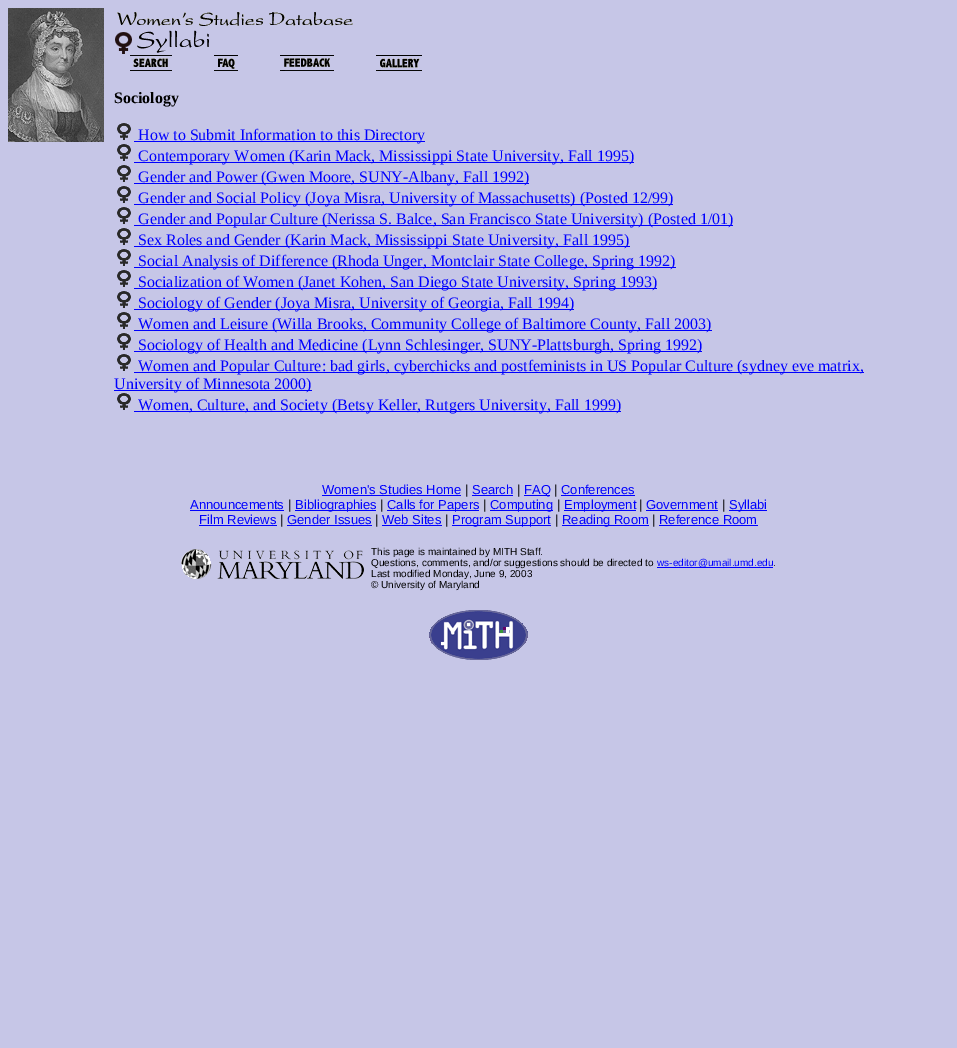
%!PS
<< /PageSize [957 1048] >> setpagedevice
/rgb { 3 { 255 div 3 1 roll } repeat setrgbcolor } def
/font { [ exch dup neg 0 0 3 -1 roll 0 0 ] selectfont } def
/text { moveto show } def
/picture { 5 dict begin { /h /w /y /x /name } { exch def } forall
  gsave x y translate w h scale
  w h 8 [w 0 0 h 0 0] name (r) file false 3 colorimage grestore end } def
0 1048 translate 1 -1 scale
4 setmiterlimit
198 198 231 rgb
0 0 957 1048 rectfill
(img_01.rgb) 8 8 96 134 picture
(img_02.rgb) 117 12 236 14 picture
(img_03.rgb) 115 30 94 24 picture
(img_04.rgb) 130 55 42 16 picture
(img_05.rgb) 214 55 24 16 picture
(img_06.rgb) 280 55 54 16 picture
(img_07.rgb) 376 55 46 16 picture
(img_08.rgb) 117 123 14 17 picture
0 0 255 rgb
134 141 291 1 rectfill
(img_08.rgb) 117 144 14 17 picture
134 162 500 1 rectfill
(img_08.rgb) 117 165 14 17 picture
134 183 395 1 rectfill
(img_08.rgb) 117 186 14 17 picture
134 204 539 1 rectfill
(img_08.rgb) 117 207 14 17 picture
134 225 599 1 rectfill
(img_08.rgb) 117 228 14 17 picture
134 246 496 1 rectfill
(img_08.rgb) 117 249 14 17 picture
134 267 542 1 rectfill
(img_08.rgb) 117 270 14 17 picture
134 288 523 1 rectfill
(img_08.rgb) 117 291 14 17 picture
134 309 440 1 rectfill
(img_08.rgb) 117 312 14 17 picture
134 330 578 1 rectfill
(img_08.rgb) 117 333 14 17 picture
134 351 568 1 rectfill
(img_08.rgb) 117 354 14 17 picture
134 372 730 1 rectfill
114 390 198 1 rectfill
(img_08.rgb) 117 393 14 17 picture
134 411 487 1 rectfill
322 495 139 1 rectfill
472 495 41 1 rectfill
524 495 26 1 rectfill
561 495 74 1 rectfill
190 510 94 1 rectfill
295 510 81 1 rectfill
387 510 92 1 rectfill
490 510 63 1 rectfill
564 510 72 1 rectfill
646 510 72 1 rectfill
729 510 38 1 rectfill
199 525 78 1 rectfill
287 525 85 1 rectfill
382 525 60 1 rectfill
452 525 99 1 rectfill
562 525 87 1 rectfill
659 525 99 1 rectfill
(img_09.rgb) 181 549 183 30 picture
657 567 116 1 rectfill
(img_10.rgb) 429 610 99 50 picture
/LiberationSerif-Bold 16 font
0 0 0 rgb
(Sociology) 114 103 text
/LiberationSerif-Regular 16 font
0 0 255 rgb
(How to Submit Information to this Directory) 138 140 text
(Contemporary Women \(Karin Mack, Mississippi State University, Fall 1995\)) 138 161 text
(Gender and Power \(Gwen Moore, SUNY-Albany, Fall 1992\)) 138 182 text
(Gender and Social Policy \(Joya Misra, University of Massachusetts\) \(Posted 12/99\)) 138 203 text
(Gender and Popular Culture \(Nerissa S. Balce, San Francisco State University\) \(Posted 1/01\)) 138 224 text
(Sex Roles and Gender \(Karin Mack, Mississippi State University, Fall 1995\)) 138 245 text
(Social Analysis of Difference \(Rhoda Unger, Montclair State College, Spring 1992\)) 138 266 text
(Socialization of Women \(Janet Kohen, San Diego State University, Spring 1993\)) 138 287 text
(Sociology of Gender \(Joya Misra, University of Georgia, Fall 1994\)) 138 308 text
(Women and Leisure \(Willa Brooks, Community College of Baltimore County, Fall 2003\)) 138 329 text
(Sociology of Health and Medicine \(Lynn Schlesinger, SUNY-Plattsburgh, Spring 1992\)) 138 350 text
(Women and Popular Culture: bad girls, cyberchicks and postfeminists in US Popular Culture \(sydney eve matrix,) 138 371 text
(University of Minnesota 2000\)) 114 389 text
(Women, Culture, and Society \(Betsy Keller, Rutgers University, Fall 1999\)) 138 410 text
/LiberationSans-Regular 13 font
(Women's Studies Home) 322 494 text
0 0 0 rgb
(|) 465 494 text
0 0 255 rgb
(Search) 472 494 text
0 0 0 rgb
(|) 517 494 text
0 0 255 rgb
(FAQ) 524 494 text
0 0 0 rgb
(|) 554 494 text
0 0 255 rgb
(Conferences) 561 494 text
(Announcements) 190 509 text
0 0 0 rgb
(|) 288 509 text
0 0 255 rgb
(Bibliographies) 295 509 text
0 0 0 rgb
(|) 380 509 text
0 0 255 rgb
(Calls for Papers) 387 509 text
0 0 0 rgb
(|) 483 509 text
0 0 255 rgb
(Computing) 490 509 text
0 0 0 rgb
(|) 557 509 text
0 0 255 rgb
(Employment) 564 509 text
0 0 0 rgb
(|) 639 509 text
0 0 255 rgb
(Government) 646 509 text
0 0 0 rgb
(|) 722 509 text
0 0 255 rgb
(Syllabi) 729 509 text
(Film Reviews) 199 524 text
0 0 0 rgb
(|) 280 524 text
0 0 255 rgb
(Gender Issues) 287 524 text
0 0 0 rgb
(|) 375 524 text
0 0 255 rgb
(Web Sites) 382 524 text
0 0 0 rgb
(|) 445 524 text
0 0 255 rgb
(Program Support) 452 524 text
0 0 0 rgb
(|) 555 524 text
0 0 255 rgb
(Reading Room) 562 524 text
0 0 0 rgb
(|) 652 524 text
0 0 255 rgb
(Reference Room) 659 524 text
/LiberationSans-Regular 10 font
0 0 0 rgb
(This page is maintained by MITH Staff.) 371 555 text
(Questions, comments, and/or suggestions should be directed to) 371 566 text
0 0 255 rgb
(ws-editor@umail.umd.edu) 657 566 text
0 0 0 rgb
(.) 773 566 text
(Last modified Monday, June 9, 2003) 371 577 text
(© University of Maryland) 371 588 text
showpage
